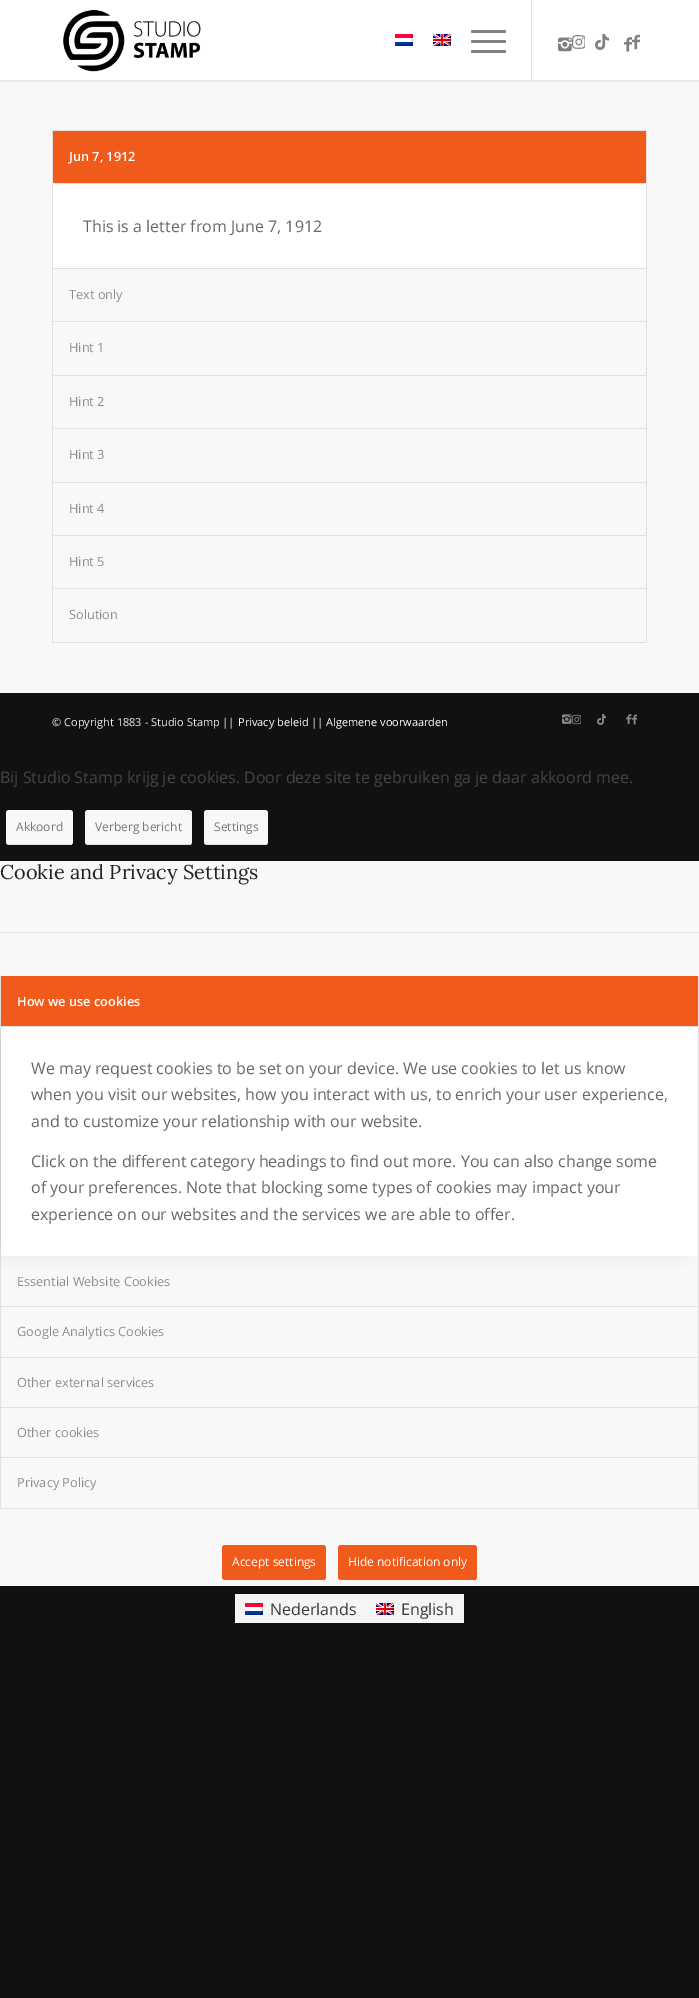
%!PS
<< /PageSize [699 1998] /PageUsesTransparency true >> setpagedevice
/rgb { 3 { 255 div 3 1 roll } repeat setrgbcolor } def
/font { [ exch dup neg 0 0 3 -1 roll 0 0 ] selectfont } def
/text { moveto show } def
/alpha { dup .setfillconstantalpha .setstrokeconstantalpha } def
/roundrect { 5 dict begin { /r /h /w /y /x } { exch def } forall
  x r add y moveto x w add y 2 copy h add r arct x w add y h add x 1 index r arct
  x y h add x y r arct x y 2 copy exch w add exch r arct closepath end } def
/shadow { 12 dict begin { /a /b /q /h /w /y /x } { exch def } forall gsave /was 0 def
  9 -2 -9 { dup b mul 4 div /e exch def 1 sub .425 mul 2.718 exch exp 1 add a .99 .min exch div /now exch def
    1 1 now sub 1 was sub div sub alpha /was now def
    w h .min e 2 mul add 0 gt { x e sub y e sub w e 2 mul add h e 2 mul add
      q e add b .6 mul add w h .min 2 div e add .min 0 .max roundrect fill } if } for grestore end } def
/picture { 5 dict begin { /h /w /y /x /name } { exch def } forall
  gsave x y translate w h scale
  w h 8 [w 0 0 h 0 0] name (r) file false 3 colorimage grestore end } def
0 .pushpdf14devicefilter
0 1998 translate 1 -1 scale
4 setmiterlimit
17 17 17 rgb
0 0 699 1998 rectfill
248 248 248 rgb
0 80 699 613 rectfill
0 0 0 rgb
-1 -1 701 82 0 1 0.1 shadow
255 255 255 rgb
0 0 699 80 rectfill
(img_01.rgb) 63 9 138 63 picture
225 225 225 rgb
531 0 1 80 rectfill
(img_02.rgb) 395 34 18 12 picture
(img_03.rgb) 433 34 18 12 picture
128 128 128 rgb
471 40 35 3 1.5 roundrect fill
471 30 35 3 1.5 roundrect fill
471 50 35 3 1.5 roundrect fill
(img_04.rgb) 558 37 14 15 picture
(img_05.rgb) 572 35 13 14 picture
(img_06.rgb) 595 34 14 16 picture
(img_07.rgb) 624 37 8 15 picture
(img_08.rgb) 632 34 8 16 picture
225 225 225 rgb
646 130 1 513 rectfill
52 642 595 1 rectfill
52 130 1 513 rectfill
240 90 26 rgb
53 131 593 52 rectfill
225 225 225 rgb
53 130 593 1 rectfill
255 255 255 rgb
53 183 593 85 2 roundrect fill
225 225 225 rgb
54 183 591 1 rectfill
53 268 593 1 rectfill
53 321 593 1 rectfill
53 375 593 1 rectfill
53 428 593 1 rectfill
53 482 593 1 rectfill
53 535 593 1 rectfill
53 588 593 1 rectfill
22 22 22 rgb
0 693 699 1 rectfill
(img_09.rgb) 562 714 10 10 picture
(img_10.rgb) 572 714 9 11 picture
(img_11.rgb) 597 714 9 11 picture
(img_12.rgb) 626 714 6 11 picture
(img_13.rgb) 632 714 5 11 picture
248 248 248 rgb
6 810 67 35 3 roundrect fill
225 225 225 rgb
8 844 64 1 rectfill
248 248 248 rgb
85 810 107 35 3 roundrect fill
225 225 225 rgb
87 844 104 1 rectfill
248 248 248 rgb
204 810 64 35 3 roundrect fill
225 225 225 rgb
206 844 61 1 rectfill
248 248 248 rgb
0 861 699 725 rectfill
225 225 225 rgb
0 932 699 1 rectfill
698 976 1 533 rectfill
0 1508 699 1 rectfill
0 976 1 533 rectfill
0 0 0 rgb
3 1036 677 210 0 10 0.2 shadow
240 90 26 rgb
1 976 697 50 rectfill
255 255 255 rgb
1 1026 697 230 2 roundrect fill
225 225 225 rgb
1 1026 697 1 rectfill
1 1306 697 1 rectfill
1 1357 697 1 rectfill
1 1407 697 1 rectfill
1 1457 697 1 rectfill
240 90 26 rgb
222 1545 104 35 3 roundrect fill
224 1579 101 1 rectfill
338 1545 139 35 3 roundrect fill
340 1579 136 1 rectfill
245 245 245 rgb
235 1594 229 29 rectfill
(img_02.rgb) 245 1603 18 12 picture
(img_03.rgb) 376 1603 18 12 picture
/OpenSans-SemiBold 12.75 font
255 255 255 rgb
(Jun 7, 1912) 69 161 text
/OpenSans-Regular 16 font
102 102 102 rgb
(This is a letter from June 7, 1912) 83 232 text
/OpenSans-Regular 12.75 font
141 141 141 rgb
(Text only) 69 299 text
(Hint 1) 69 352 text
(Hint 2) 69 406 text
(Hint 3) 69 459 text
(Hint 4) 69 513 text
(Hint 5) 69 566 text
(Solution) 69 619 text
/OpenSans-Regular 11 font
238 238 238 rgb
(© Copyright 1883 - Studio Stamp ||) 52 726 text
255 255 255 rgb
(Privacy beleid) 238 726 text
238 238 238 rgb
(||) 311 726 text
255 255 255 rgb
(Algemene voorwaarden) 326 726 text
/OpenSans-Regular 16 font
68 68 68 rgb
(Bij Studio Stamp krijg je cookies. Door deze site te gebruiken ga je daar akkoord mee.) 0 783 text
/OpenSans-Regular 12 font
119 119 119 rgb
(Akkoord) 16 831 text
(Verberg bericht) 95 831 text
(Settings) 214 831 text
/Lora-Regular 20 font
34 34 34 rgb
(Cookie and Privacy Settings) 0 879 text
/OpenSans-SemiBold 12.75 font
255 255 255 rgb
(How we use cookies) 17 1006 text
/OpenSans-Regular 16 font
102 102 102 rgb
(We may request cookies to be set on your device. We use cookies to let us know) 31 1074 text
(when you visit our websites, how you interact with us, to enrich your user experience,) 31 1100 text
(and to customize your relationship with our website.) 31 1127 text
(Click on the different category headings to find out more. You can also change some) 31 1167 text
(of your preferences. Note that blocking some types of cookies may impact your) 31 1193 text
(experience on our websites and the services we are able to offer.) 31 1220 text
/OpenSans-Regular 12.75 font
141 141 141 rgb
(Essential Website Cookies) 17 1286 text
(Google Analytics Cookies) 17 1336 text
(Other external services) 17 1387 text
(Other cookies) 17 1437 text
(Privacy Policy) 17 1487 text
/OpenSans-Regular 12 font
255 255 255 rgb
(Accept settings) 232 1566 text
(Hide notification only) 348 1566 text
/OpenSans-Regular 16 font
57 57 57 rgb
(Nederlands) 270 1615 text
(English) 401 1615 text
.poppdf14devicefilter showpage
